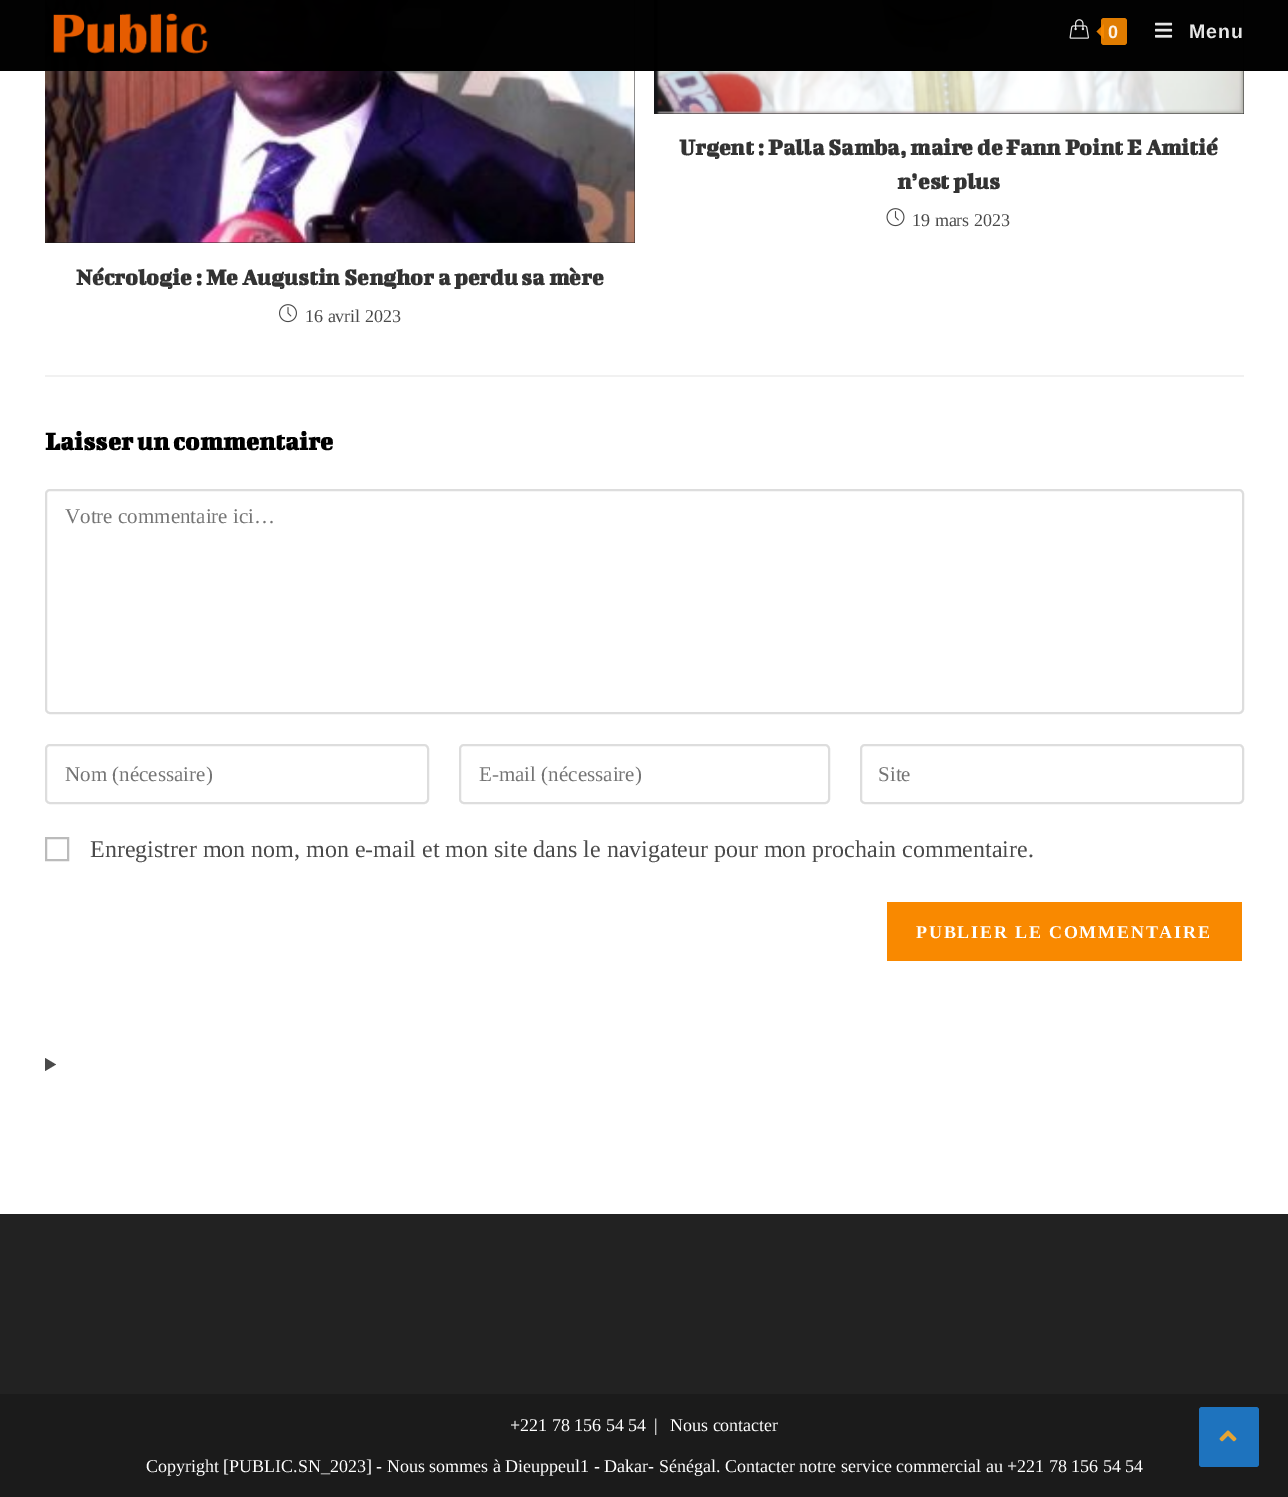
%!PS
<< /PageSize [1288 1497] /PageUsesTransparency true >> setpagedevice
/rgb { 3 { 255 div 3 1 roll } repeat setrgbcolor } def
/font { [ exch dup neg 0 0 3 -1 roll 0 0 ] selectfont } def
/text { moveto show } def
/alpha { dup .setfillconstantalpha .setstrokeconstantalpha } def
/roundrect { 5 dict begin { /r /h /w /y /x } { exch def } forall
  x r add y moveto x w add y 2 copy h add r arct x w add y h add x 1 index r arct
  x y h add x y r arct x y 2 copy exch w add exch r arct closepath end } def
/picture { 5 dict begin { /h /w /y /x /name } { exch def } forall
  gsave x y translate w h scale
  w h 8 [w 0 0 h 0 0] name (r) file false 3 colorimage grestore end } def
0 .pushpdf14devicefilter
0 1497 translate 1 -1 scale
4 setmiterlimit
255 255 255 rgb
0 0 1288 1497 rectfill
34 34 34 rgb
654 0 590 114 rectfill
(img_04.rgb) 654 0 590 114 picture
45 0 590 243 rectfill
(img_06.rgb) 45 0 590 243 picture
0.9 alpha
0 0 0 rgb
0 0 1288 71 rectfill
0 0 1288 71 rectfill
1 alpha
(img_01.rgb) 53 13 155 41 picture
(img_02.rgb) 1069 19 20 20 picture
224 124 0 rgb
1101 18 26 27 3 roundrect fill
0.9 alpha
249 137 0 rgb
1104 24 moveto 0 15 rlineto -7.5 -7.5 rlineto closepath fill
1 alpha
(img_03.rgb) 1155 22 18 16 picture
(img_05.rgb) 886 208 19 19 picture
(img_07.rgb) 279 304 18 19 picture
241 241 241 rgb
45 375 1199 2 rectfill
221 221 221 rgb
2 setlinewidth
46 490 1197 223 4 roundrect stroke
46 745 382 58 4 roundrect stroke
460 745 369 58 4 roundrect stroke
861 745 382 58 4 roundrect stroke
187 187 187 rgb
46 838 22 22 rectstroke
249 137 0 rgb
887 902 355 59 rectfill
74 74 74 rgb
45 1058 moveto 11 6.5 rlineto -11 6.5 rlineto closepath fill
34 34 34 rgb
0 1214 1288 180 rectfill
27 27 27 rgb
0 1394 1288 103 rectfill
30 115 190 rgb
1199 1407 60 60 3 roundrect fill
(img_08.rgb) 1219 1430 18 12 picture
/LiberationSans-Bold 18 font
252 242 230 rgb
1108 38 moveto 1 0 (0) ashow
/LiberationSans-Bold 19.5 font
230 230 230 rgb
1189 38 moveto 1 0 (Menu) ashow
/BigshotOne-Bold 24 font
51 51 51 rgb
(Urgent : Palla Samba, maire de Fann Point E Amitié) 679 155 text
(n’est plus) 897 189 text
/LiberationSerif-Regular 18 font
74 74 74 rgb
(19 mars 2023) 912 226 text
/BigshotOne-Bold 24 font
51 51 51 rgb
(Nécrologie : Me Augustin Senghor a perdu sa mère) 76 285 text
/LiberationSerif-Regular 18 font
74 74 74 rgb
(16 avril 2023) 305 322 text
/BigshotOne-Bold 27 font
0 0 0 rgb
(Laisser un commentaire) 45 450 text
/LiberationSerif-Regular 21 font
117 117 117 rgb
(Votre commentaire ici…) 65 523 text
(Nom \(nécessaire\)) 65 781 text
(E-mail \(nécessaire\)) 479 781 text
(Site) 878 781 text
/LiberationSerif-Regular 24 font
74 74 74 rgb
(Enregistrer mon nom, mon e-mail et mon site dans le navigateur pour mon prochain commentaire.) 90 857 text
/LiberationSerif-Bold 18 font
255 255 255 rgb
916 938 moveto 1.8 0 (PUBLIER LE COMMENTAIRE) ashow
/LiberationSerif-Regular 18 font
(+221 78 156 54 54) 510 1431 text
(|) 654 1431 text
(Nous contacter) 670 1431 text
(Copyright [PUBLIC.SN_2023] - Nous sommes à Dieuppeul1 - Dakar- Sénégal. Contacter notre service commercial au +221 78 156 54 54) 146 1472 text
.poppdf14devicefilter showpage
